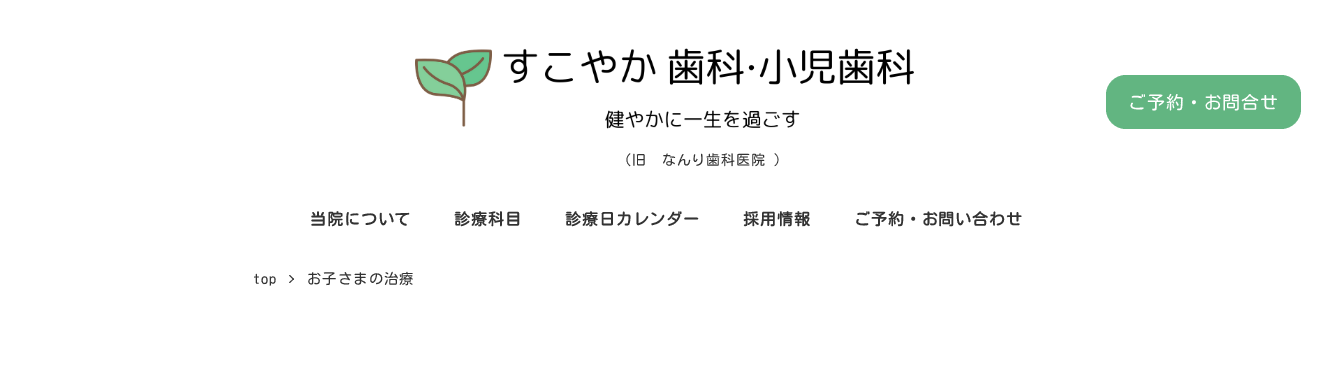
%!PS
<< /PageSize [1333 387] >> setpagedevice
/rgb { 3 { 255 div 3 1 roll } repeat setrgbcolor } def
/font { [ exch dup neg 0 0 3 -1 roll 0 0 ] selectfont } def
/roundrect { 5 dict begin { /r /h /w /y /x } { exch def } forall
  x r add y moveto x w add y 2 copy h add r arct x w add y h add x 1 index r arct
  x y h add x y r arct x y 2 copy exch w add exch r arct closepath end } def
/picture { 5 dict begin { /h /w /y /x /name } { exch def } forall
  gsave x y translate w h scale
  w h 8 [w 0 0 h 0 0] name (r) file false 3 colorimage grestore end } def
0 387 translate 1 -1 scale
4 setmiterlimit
255 255 255 rgb
0 0 1333 387 rectfill
98 181 129 rgb
1106 75 195 54 20 roundrect fill
(img_01.rgb) 415 48 499 81 picture
51 51 51 rgb
290 275 moveto 4 4 rlineto -0.5 1 rlineto -4.5 -4.5 rlineto closepath fill
293.5 278.5 moveto 0.5 0.5 rlineto -4 4 rlineto -1 -0.5 rlineto closepath fill
/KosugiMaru-Regular 18 font
255 255 255 rgb
1128 109 moveto 0.9 0 (ご予約・お問合せ) ashow
/KosugiMaru-Regular 14 font
51 51 51 rgb
624 165 moveto 0.9 0 (\(旧　なんり歯科医院 \)) ashow
/KosugiMaru-Bold 16 font
310 225 moveto 0.9 0 (当院について) ashow
454 225 moveto 0.9 0 (診療科目) ashow
565 225 moveto 0.9 0 (診療日カレンダー) ashow
743 225 moveto 0.9 0 (採用情報) ashow
854 225 moveto 0.9 0 (ご予約・お問い合わせ) ashow
/KosugiMaru-Regular 14.5 font
253 284 moveto 0.9 0 (top) ashow
307 284 moveto 0.9 0 (お子さまの治療) ashow
showpage
